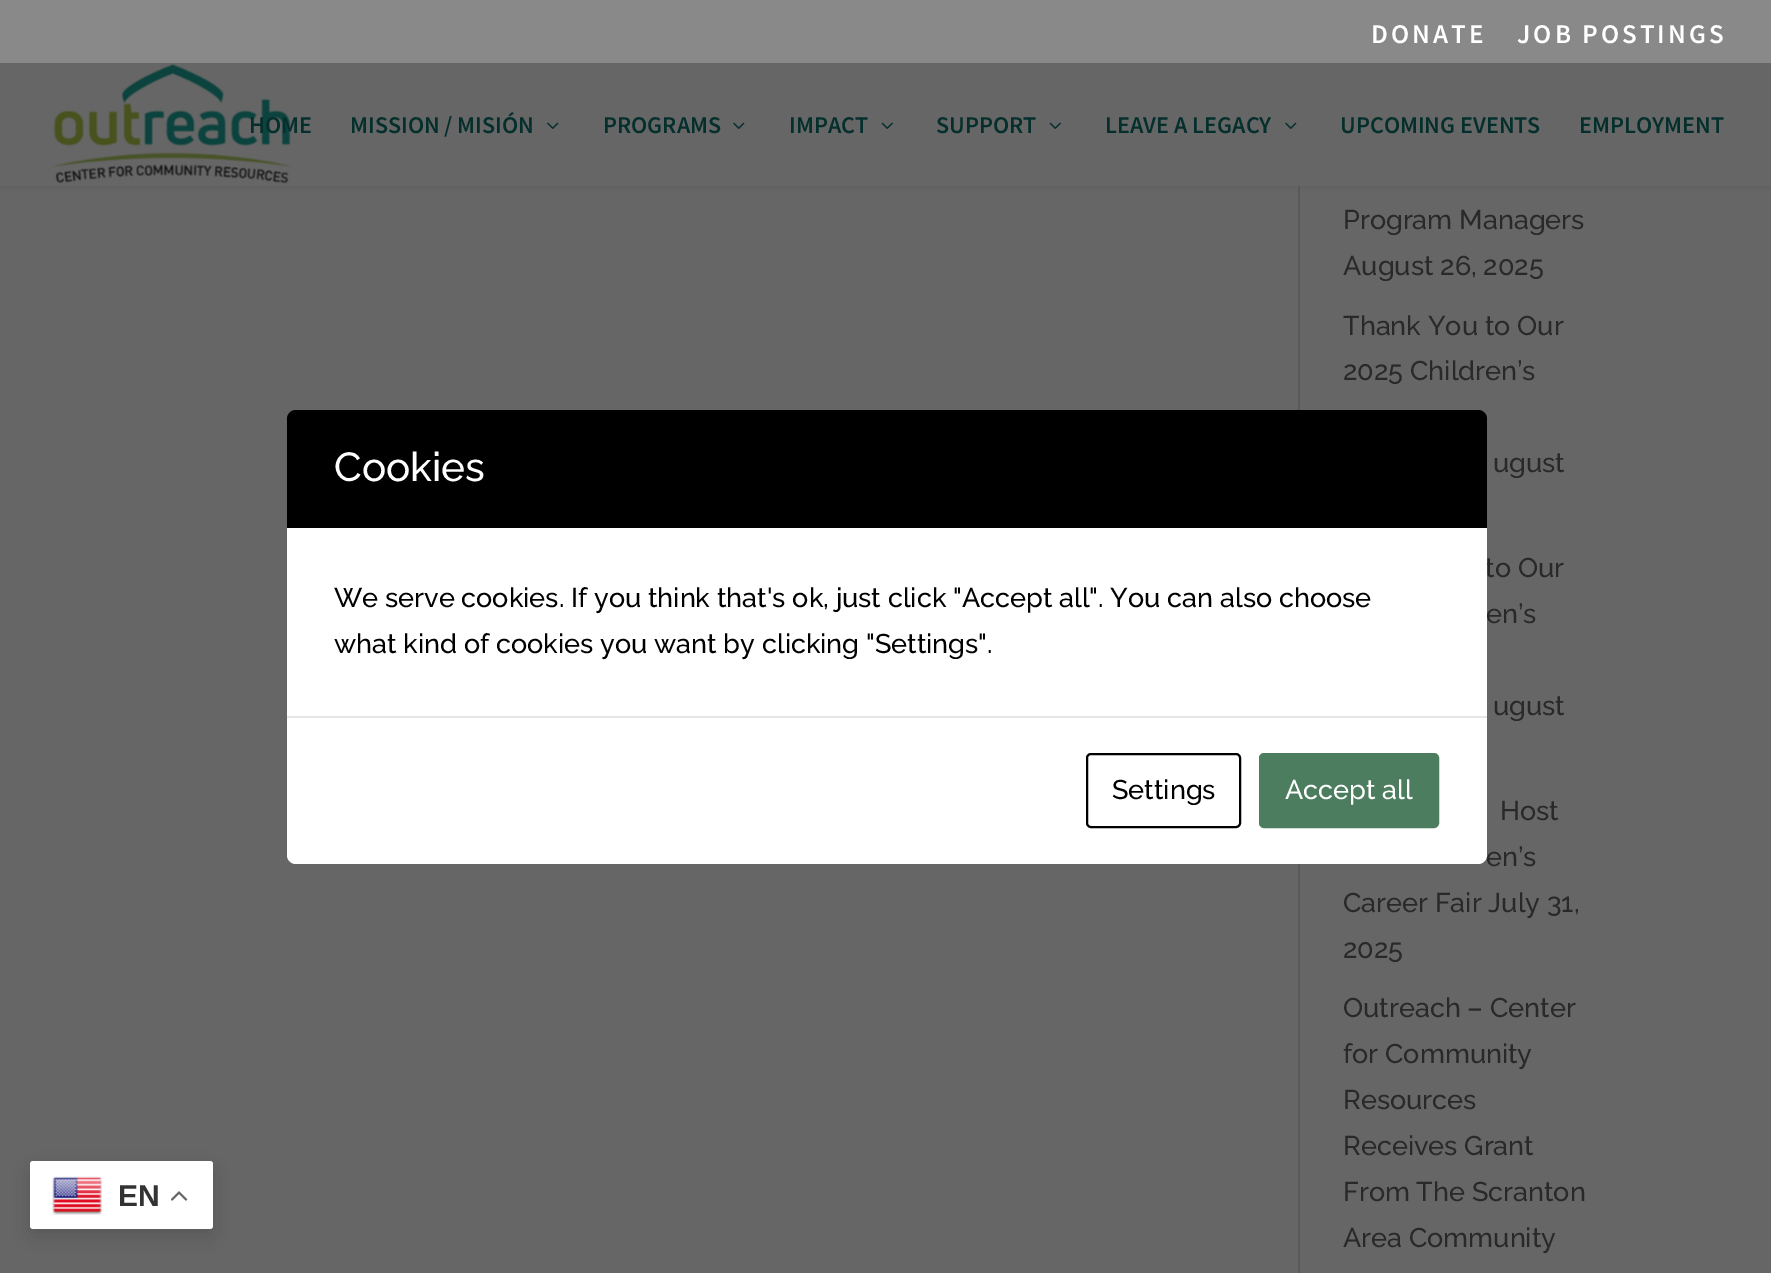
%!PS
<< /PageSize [1771 1273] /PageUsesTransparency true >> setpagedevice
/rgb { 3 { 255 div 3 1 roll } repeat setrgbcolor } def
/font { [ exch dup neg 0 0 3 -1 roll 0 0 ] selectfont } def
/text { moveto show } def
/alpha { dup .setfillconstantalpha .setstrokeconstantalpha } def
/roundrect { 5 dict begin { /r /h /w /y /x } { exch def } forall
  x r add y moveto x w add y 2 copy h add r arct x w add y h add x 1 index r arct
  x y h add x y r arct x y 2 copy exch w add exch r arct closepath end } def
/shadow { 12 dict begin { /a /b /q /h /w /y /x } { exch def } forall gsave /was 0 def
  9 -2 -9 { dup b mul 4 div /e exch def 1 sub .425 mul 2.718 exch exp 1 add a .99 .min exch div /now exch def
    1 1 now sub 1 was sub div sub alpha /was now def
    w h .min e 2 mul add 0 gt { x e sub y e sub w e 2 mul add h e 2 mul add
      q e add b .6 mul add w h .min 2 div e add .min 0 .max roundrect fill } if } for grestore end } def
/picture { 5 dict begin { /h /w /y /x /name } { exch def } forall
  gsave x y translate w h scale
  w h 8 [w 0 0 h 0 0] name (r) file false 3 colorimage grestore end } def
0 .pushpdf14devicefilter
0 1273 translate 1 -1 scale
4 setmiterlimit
102 102 102 rgb
0 0 1771 1273 rectfill
90 90 90 rgb
1298 186 2 1087 rectfill
0 0 0 rgb
0 63 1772 123 0 5 0.1 shadow
137 137 137 rgb
0 0 1771 63 rectfill
102 102 102 rgb
0 63 1771 123 rectfill
(img_01.rgb) 52 64 241 120 picture
(img_02.rgb) 547 122 12 7 picture
(img_02.rgb) 733 122 12 7 picture
(img_03.rgb) 881 122 12 7 picture
(img_03.rgb) 1049 122 12 7 picture
(img_02.rgb) 1285 122 12 7 picture
0 0 0 rgb
296 410 moveto 1182 0 rlineto 5 0 9 4 9 9 rcurveto 0 109 rlineto -1200 0 rlineto 0 -109 rlineto 0 -5 4 -9 9 -9 rcurveto closepath fill
30 1169 183 67 3 11 0.15 shadow
255 255 255 rgb
30 1161 183 68 3 roundrect fill
(img_04.rgb) 52 1176 50 39 picture
(img_05.rgb) 171 1191 17 10 picture
/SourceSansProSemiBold-SemiBold 27 font
1371 43 moveto 3 0 (DONATE) ashow
1517 43 moveto 3 0 (JOB POSTINGS) ashow
/SourceSansProSemiBold-SemiBold 24 font
5 47 44 rgb
(HOME) 249 133 text
(MISSION / MISIÓN) 350 133 text
(PROGRAMS) 603 133 text
(IMPACT) 789 133 text
(SUPPORT) 936 133 text
(LEAVE A LEGACY) 1105 133 text
(UPCOMING EVENTS) 1340 133 text
(EMPLOYMENT) 1579 133 text
/Raleway-Thin 27 font
41 41 41 rgb
(Program Managers) 1343 229 text
(August 26, 2025) 1343 275 text
(Thank You to Our) 1343 335 text
(2025 Children’s) 1343 380 text
(ugust) 1493 472 text
(to Our) 1485 577 text
(en’s) 1486 623 text
(ugust) 1493 715 text
(Host) 1500 820 text
(en’s) 1486 866 text
(Career Fair July 31,) 1343 912 text
(2025) 1343 958 text
(Outreach – Center) 1343 1017 text
(for Community) 1343 1063 text
(Resources) 1343 1109 text
(Receives Grant) 1343 1155 text
(From The Scranton) 1343 1201 text
(Area Community) 1343 1247 text
/Raleway-Thin 40.5 font
255 255 255 rgb
(Cookies) 334 481 text
287 528 1200 188 rectfill
/Raleway-Thin 27 font
0 0 0 rgb
(We serve cookies. If you think that's ok, just click "Accept all". You can also choose) 334 607 text
(what kind of cookies you want by clicking "Settings".) 334 653 text
255 255 255 rgb
287 716 moveto 1200 0 rlineto 0 139 rlineto 0 5 -4 9 -9 9 rcurveto -1182 0 rlineto -5 0 -9 -4 -9 -9 rcurveto closepath fill
230 230 230 rgb
287 716 1200 2 rectfill
0 0 0 rgb
2 setlinewidth
1087 754 153 73 4 roundrect stroke
(Settings) 1112 799 text
75 125 94 rgb
1260 754 178 73 4 roundrect gsave fill grestore
stroke
255 255 255 rgb
(Accept all) 1285 799 text
/LiberationSans-Bold 30 font
51 51 51 rgb
(EN) 118 1206 text
.poppdf14devicefilter showpage
